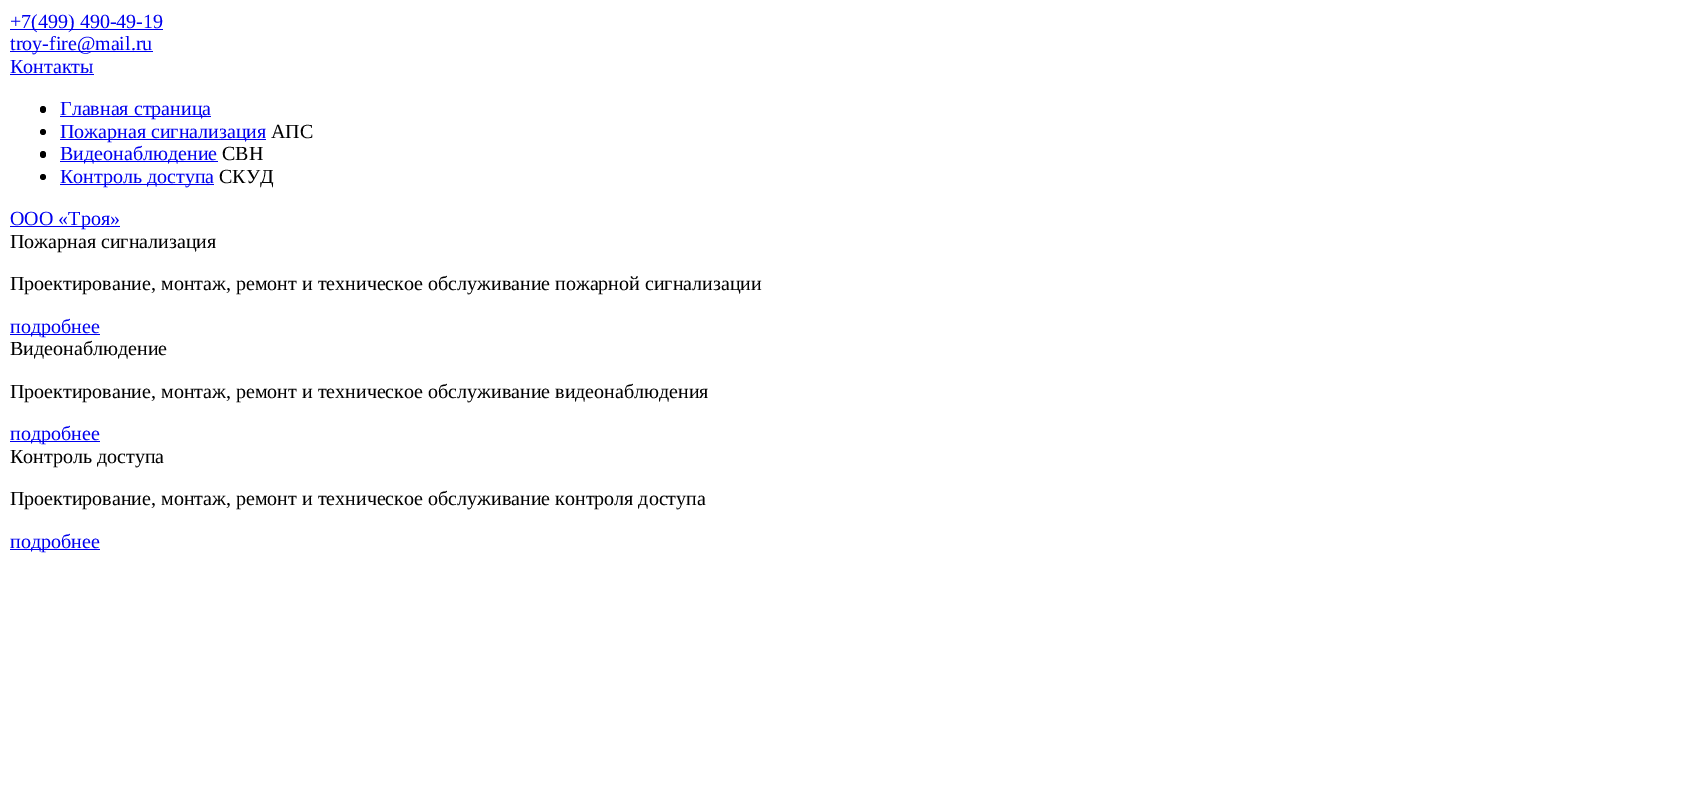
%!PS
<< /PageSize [1684 788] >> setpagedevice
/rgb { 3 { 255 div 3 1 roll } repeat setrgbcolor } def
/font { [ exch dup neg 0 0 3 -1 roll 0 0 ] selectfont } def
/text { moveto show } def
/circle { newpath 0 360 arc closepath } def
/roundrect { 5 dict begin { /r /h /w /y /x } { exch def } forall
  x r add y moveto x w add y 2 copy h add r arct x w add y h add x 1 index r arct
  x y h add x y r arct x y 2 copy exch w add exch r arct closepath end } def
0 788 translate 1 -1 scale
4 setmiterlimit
255 255 255 rgb
0 0 1684 788 rectfill
0 0 238 rgb
10 29 153 1 rectfill
10 51 143 1 rectfill
10 74 84 1 rectfill
0 0 0 rgb
40 106 6 7 3 roundrect fill
0 0 238 rgb
60 116 151 1 rectfill
0 0 0 rgb
43 132 3 circle fill
0 0 238 rgb
60 139 206 1 rectfill
0 0 0 rgb
40 151 6 7 3 roundrect fill
0 0 238 rgb
60 161 158 1 rectfill
0 0 0 rgb
43 177 3 circle fill
0 0 238 rgb
60 184 154 1 rectfill
10 226 110 1 rectfill
10 334 90 1 rectfill
10 441 90 1 rectfill
10 549 90 1 rectfill
/LiberationSerif-Regular 20 font
(+7\(499\) 490-49-19) 10 28 text
(troy-fire@mail.ru) 10 50 text
(Контакты) 10 73 text
(Главная страница) 60 115 text
(Пожарная сигнализация) 60 138 text
0 0 0 rgb
(АПС) 271 138 text
0 0 238 rgb
(Видеонаблюдение) 60 160 text
0 0 0 rgb
(СВН) 222 160 text
0 0 238 rgb
(Контроль доступа) 60 183 text
0 0 0 rgb
(СКУД) 219 183 text
0 0 238 rgb
(ООО «Троя») 10 225 text
0 0 0 rgb
(Пожарная сигнализация) 10 248 text
(Проектирование, монтаж, ремонт и техническое обслуживание пожарной сигнализации) 10 290 text
0 0 238 rgb
(подробнее) 10 333 text
0 0 0 rgb
(Видеонаблюдение) 10 355 text
(Проектирование, монтаж, ремонт и техническое обслуживание видеонаблюдения) 10 398 text
0 0 238 rgb
(подробнее) 10 440 text
0 0 0 rgb
(Контроль доступа) 10 463 text
(Проектирование, монтаж, ремонт и техническое обслуживание контроля доступа) 10 505 text
0 0 238 rgb
(подробнее) 10 548 text
showpage
